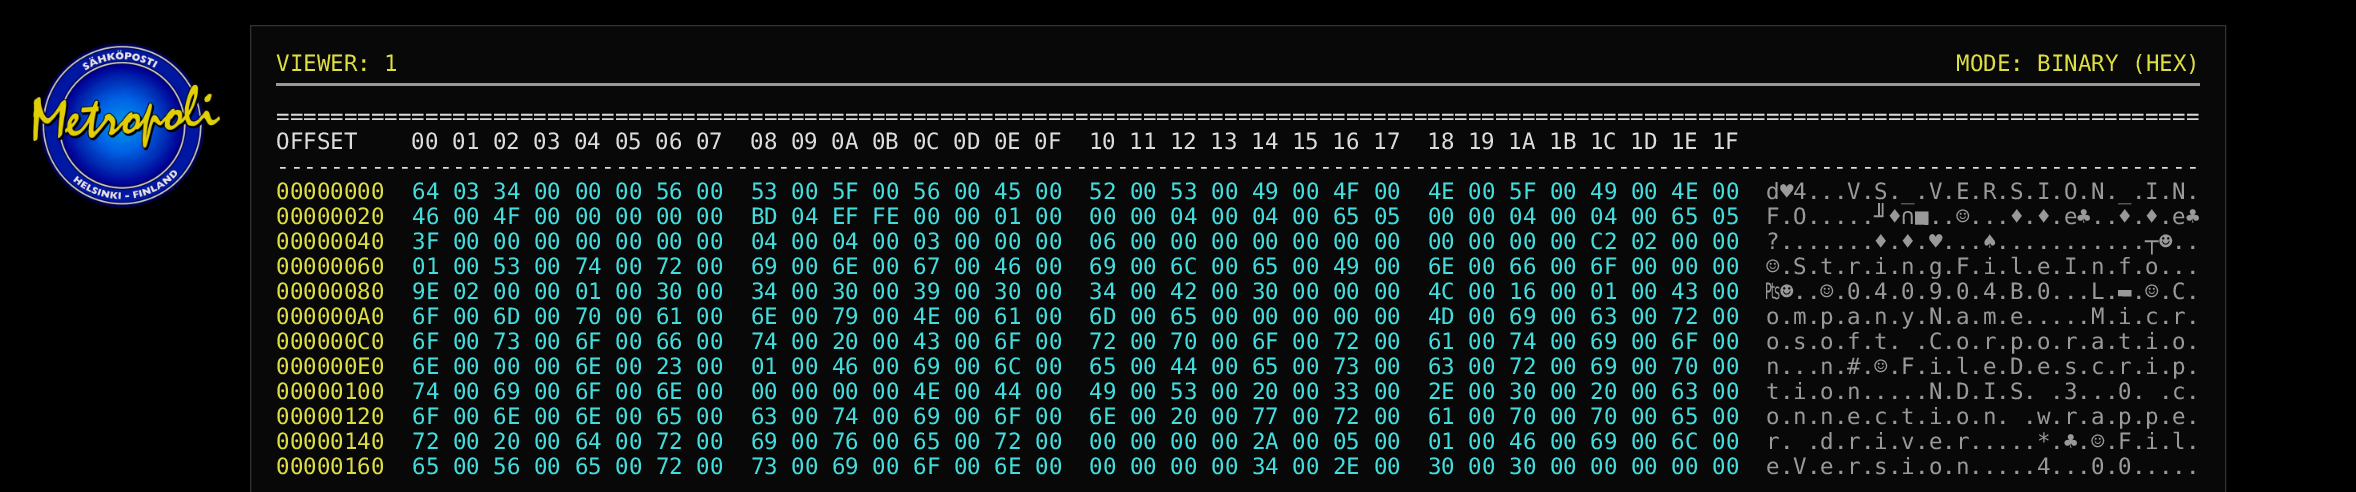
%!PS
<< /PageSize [2356 492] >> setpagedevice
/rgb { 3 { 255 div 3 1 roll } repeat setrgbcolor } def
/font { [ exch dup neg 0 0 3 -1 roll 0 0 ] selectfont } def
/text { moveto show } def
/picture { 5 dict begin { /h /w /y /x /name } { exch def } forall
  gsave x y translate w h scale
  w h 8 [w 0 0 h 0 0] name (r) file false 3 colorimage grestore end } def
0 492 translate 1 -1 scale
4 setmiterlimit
0 0 0 rgb
0 0 2356 492 rectfill
(img_01.rgb) 32 42 190 166 picture
8 8 8 rgb
250.5 25.5 moveto 1975 0 rlineto 0 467 rlineto -1975 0 rlineto closepath gsave fill grestore
51 51 51 rgb
stroke
153 153 153 rgb
276 83 1924 3 rectfill
/DejaVuSansMono-Regular 22.5 font
221 221 68 rgb
(VIEWER: 1) 276 71 text
(MODE: BINARY \(HEX\)) 1956 71 text
221 221 221 rgb
(==============================================================================================================================================) 276 124 text
(OFFSET    00 01 02 03 04 05 06 07  08 09 0A 0B 0C 0D 0E 0F  10 11 12 13 14 15 16 17  18 19 1A 1B 1C 1D 1E 1F) 276 149 text
(----------------------------------------------------------------------------------------------------------------------------------------------) 276 174 text
221 221 68 rgb
(00000000) 276 199 text
68 221 221 rgb
(64 03 34 00 00 00 56 00  53 00 5F 00 56 00 45 00  52 00 53 00 49 00 4F 00  4E 00 5F 00 49 00 4E 00) 412 199 text
153 153 153 rgb
(d♥4...V.S._.V.E.R.S.I.O.N._.I.N.) 1766 199 text
221 221 68 rgb
(00000020) 276 224 text
68 221 221 rgb
(46 00 4F 00 00 00 00 00  BD 04 EF FE 00 00 01 00  00 00 04 00 04 00 65 05  00 00 04 00 04 00 65 05) 412 224 text
153 153 153 rgb
(F.O.....╜♦∩■..☺...♦.♦.e♣..♦.♦.e♣) 1766 224 text
221 221 68 rgb
(00000040) 276 249 text
68 221 221 rgb
(3F 00 00 00 00 00 00 00  04 00 04 00 03 00 00 00  06 00 00 00 00 00 00 00  00 00 00 00 C2 02 00 00) 412 249 text
153 153 153 rgb
(?.......♦.♦.♥...♠...........┬☻..) 1766 249 text
221 221 68 rgb
(00000060) 276 274 text
68 221 221 rgb
(01 00 53 00 74 00 72 00  69 00 6E 00 67 00 46 00  69 00 6C 00 65 00 49 00  6E 00 66 00 6F 00 00 00) 412 274 text
153 153 153 rgb
(☺.S.t.r.i.n.g.F.i.l.e.I.n.f.o...) 1766 274 text
221 221 68 rgb
(00000080) 276 299 text
68 221 221 rgb
(9E 02 00 00 01 00 30 00  34 00 30 00 39 00 30 00  34 00 42 00 30 00 00 00  4C 00 16 00 01 00 43 00) 412 299 text
153 153 153 rgb
(₧☻..☺.0.4.0.9.0.4.B.0...L.▬.☺.C.) 1766 299 text
221 221 68 rgb
(000000A0) 276 324 text
68 221 221 rgb
(6F 00 6D 00 70 00 61 00  6E 00 79 00 4E 00 61 00  6D 00 65 00 00 00 00 00  4D 00 69 00 63 00 72 00) 412 324 text
153 153 153 rgb
(o.m.p.a.n.y.N.a.m.e.....M.i.c.r.) 1766 324 text
221 221 68 rgb
(000000C0) 276 349 text
68 221 221 rgb
(6F 00 73 00 6F 00 66 00  74 00 20 00 43 00 6F 00  72 00 70 00 6F 00 72 00  61 00 74 00 69 00 6F 00) 412 349 text
153 153 153 rgb
(o.s.o.f.t. .C.o.r.p.o.r.a.t.i.o.) 1766 349 text
221 221 68 rgb
(000000E0) 276 374 text
68 221 221 rgb
(6E 00 00 00 6E 00 23 00  01 00 46 00 69 00 6C 00  65 00 44 00 65 00 73 00  63 00 72 00 69 00 70 00) 412 374 text
153 153 153 rgb
(n...n.#.☺.F.i.l.e.D.e.s.c.r.i.p.) 1766 374 text
221 221 68 rgb
(00000100) 276 399 text
68 221 221 rgb
(74 00 69 00 6F 00 6E 00  00 00 00 00 4E 00 44 00  49 00 53 00 20 00 33 00  2E 00 30 00 20 00 63 00) 412 399 text
153 153 153 rgb
(t.i.o.n.....N.D.I.S. .3...0. .c.) 1766 399 text
221 221 68 rgb
(00000120) 276 424 text
68 221 221 rgb
(6F 00 6E 00 6E 00 65 00  63 00 74 00 69 00 6F 00  6E 00 20 00 77 00 72 00  61 00 70 00 70 00 65 00) 412 424 text
153 153 153 rgb
(o.n.n.e.c.t.i.o.n. .w.r.a.p.p.e.) 1766 424 text
221 221 68 rgb
(00000140) 276 449 text
68 221 221 rgb
(72 00 20 00 64 00 72 00  69 00 76 00 65 00 72 00  00 00 00 00 2A 00 05 00  01 00 46 00 69 00 6C 00) 412 449 text
153 153 153 rgb
(r. .d.r.i.v.e.r.....*.♣.☺.F.i.l.) 1766 449 text
221 221 68 rgb
(00000160) 276 474 text
68 221 221 rgb
(65 00 56 00 65 00 72 00  73 00 69 00 6F 00 6E 00  00 00 00 00 34 00 2E 00  30 00 30 00 00 00 00 00) 412 474 text
153 153 153 rgb
(e.V.e.r.s.i.o.n.....4...0.0.....) 1766 474 text
showpage
